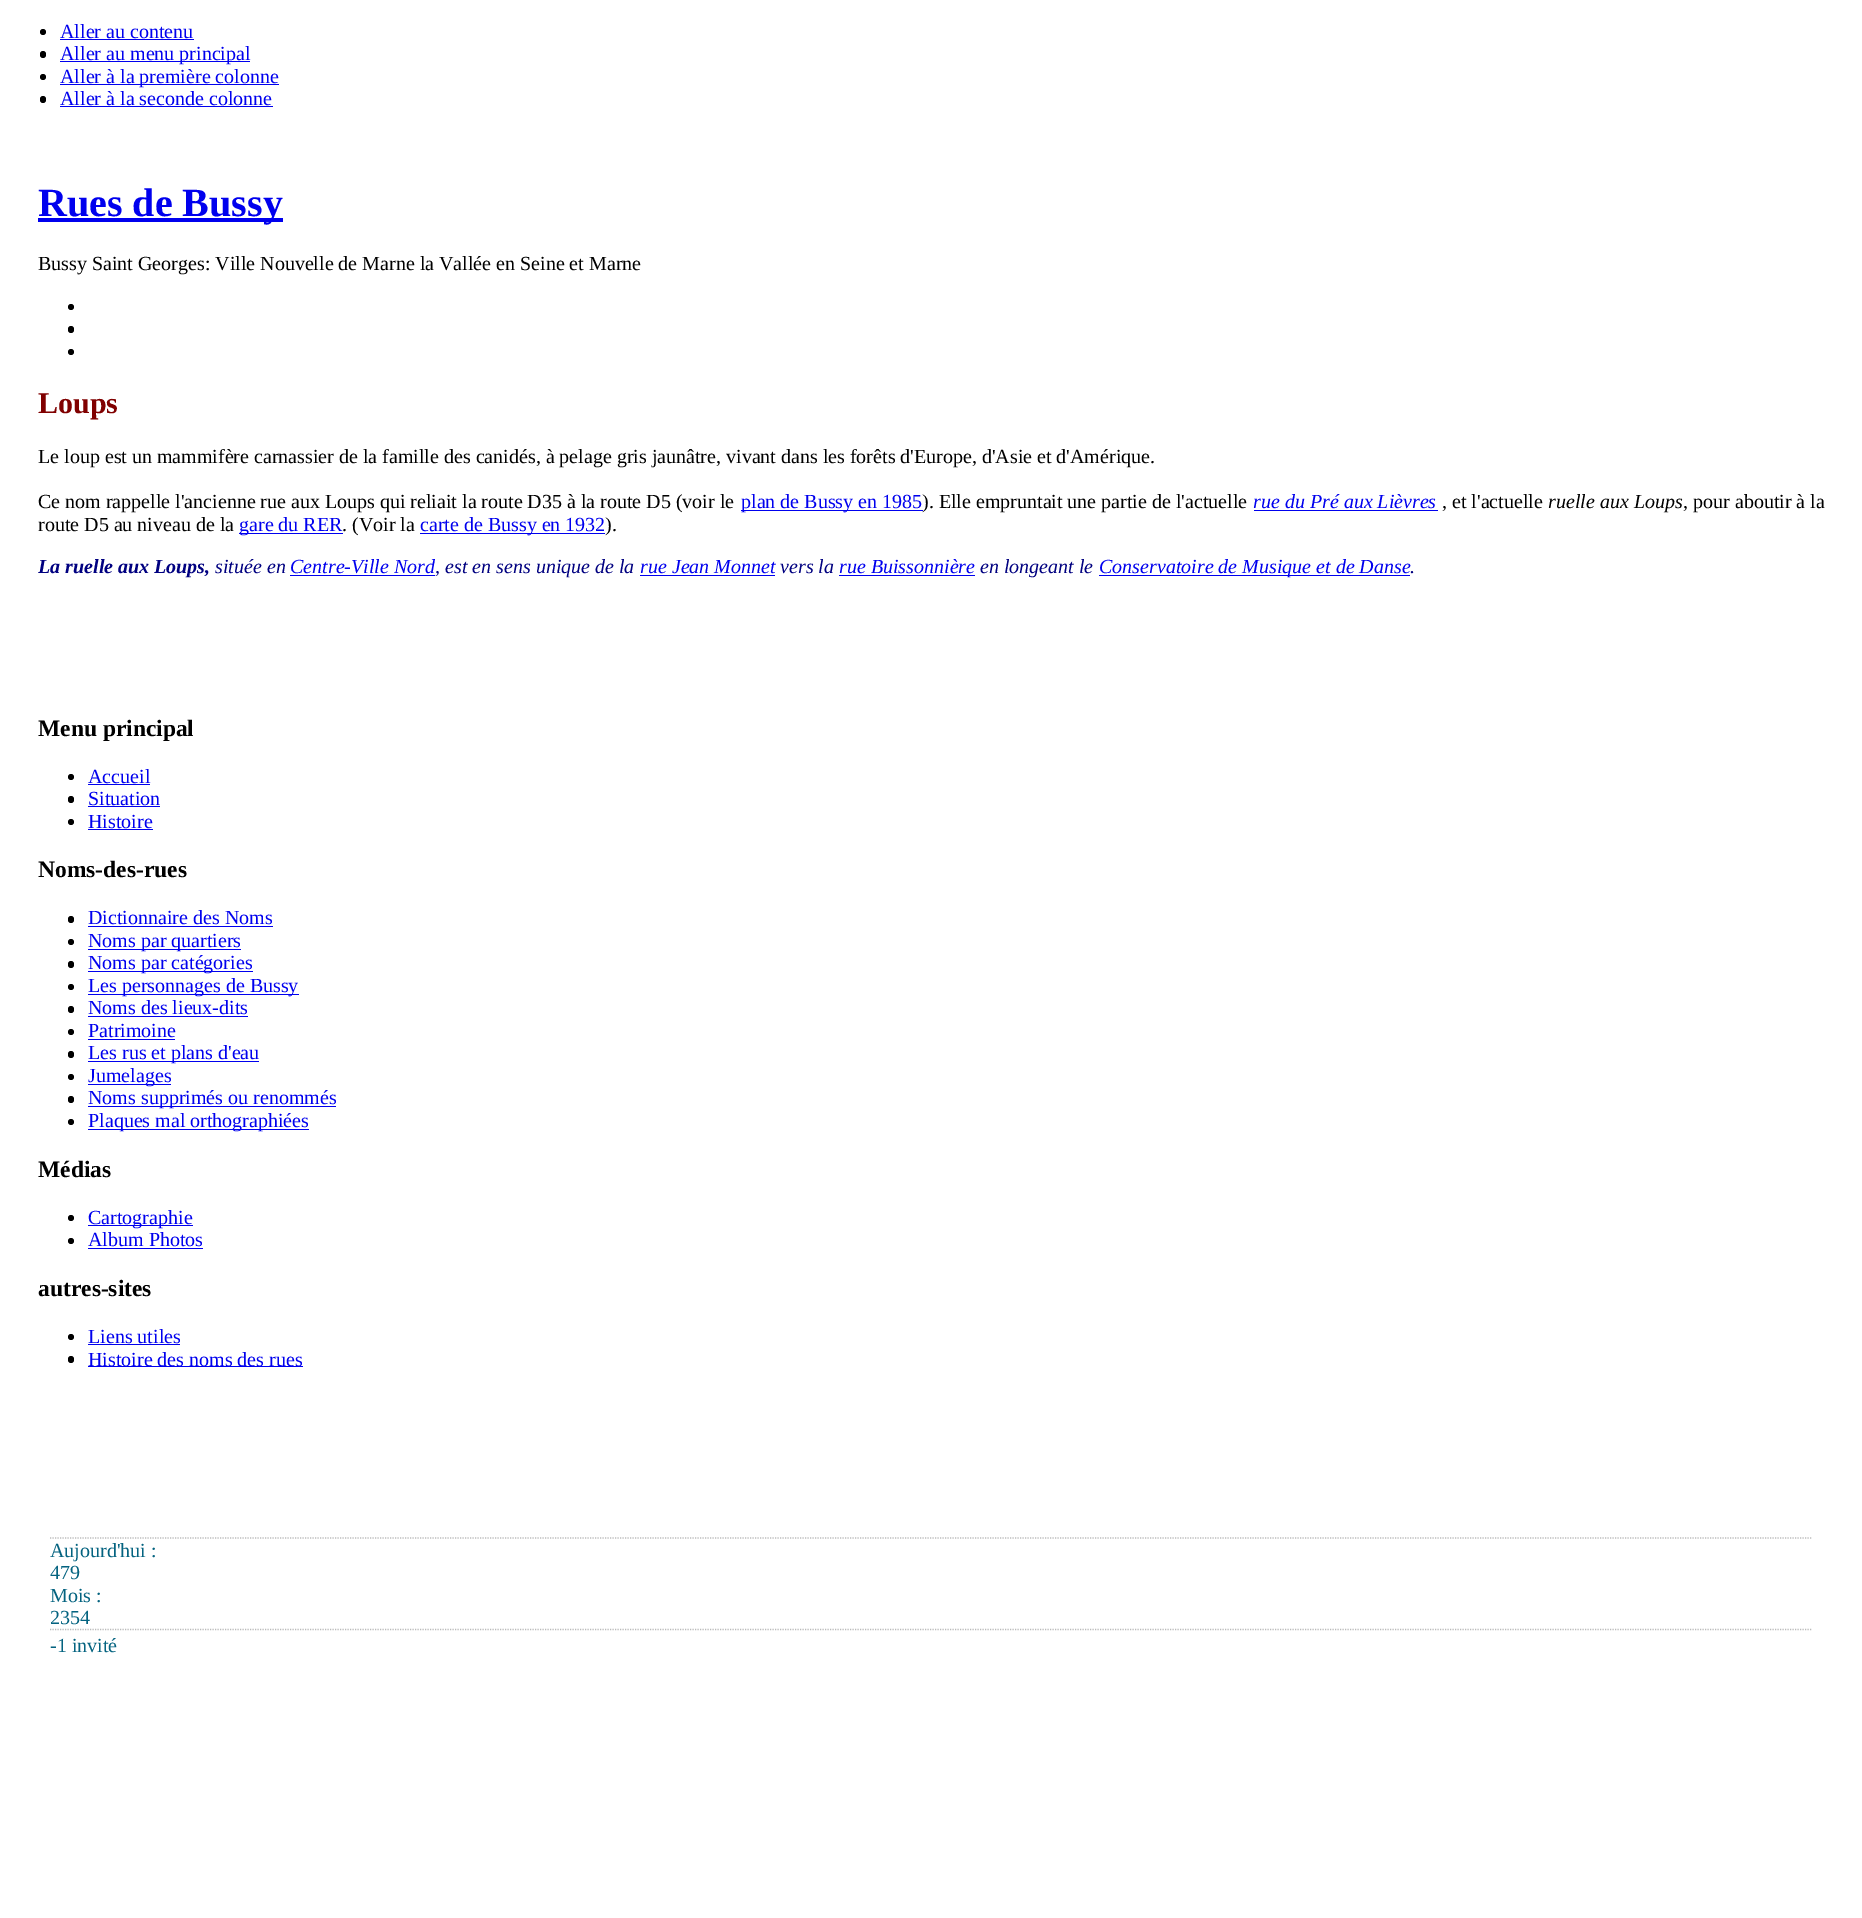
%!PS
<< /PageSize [1862 1918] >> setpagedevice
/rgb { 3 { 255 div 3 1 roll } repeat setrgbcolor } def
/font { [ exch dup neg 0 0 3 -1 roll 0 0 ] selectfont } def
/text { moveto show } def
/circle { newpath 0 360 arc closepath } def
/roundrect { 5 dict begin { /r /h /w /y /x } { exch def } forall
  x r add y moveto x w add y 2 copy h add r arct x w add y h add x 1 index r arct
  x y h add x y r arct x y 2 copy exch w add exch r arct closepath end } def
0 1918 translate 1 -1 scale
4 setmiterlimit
255 255 255 rgb
0 0 1862 1918 rectfill
0 0 0 rgb
43 32 3 circle fill
0 0 238 rgb
60 39 134 1 rectfill
0 0 0 rgb
40 51 6 7 3 roundrect fill
0 0 238 rgb
60 61 190 1 rectfill
0 0 0 rgb
43 77 3 circle fill
0 0 238 rgb
60 84 219 1 rectfill
0 0 0 rgb
40 96 6 7 3 roundrect fill
0 0 238 rgb
60 106 213 1 rectfill
38 218 245 4 rectfill
0 0 0 rgb
71 307 3 circle fill
68 326 6 7 3 roundrect fill
71 352 3 circle fill
0 0 238 rgb
741 510 182 1 rectfill
1254 510 184 1 rectfill
239 533 104 1 rectfill
420 533 185 1 rectfill
290 575 145 1 rectfill
640 575 135 1 rectfill
839 575 136 1 rectfill
1099 575 311 1 rectfill
0 0 0 rgb
71 777 3 circle fill
0 0 238 rgb
88 784 62 1 rectfill
0 0 0 rgb
68 796 6 7 3 roundrect fill
0 0 238 rgb
88 806 72 1 rectfill
0 0 0 rgb
71 822 3 circle fill
0 0 238 rgb
88 829 65 1 rectfill
0 0 0 rgb
68 916 6 7 3 roundrect fill
0 0 238 rgb
88 926 185 1 rectfill
0 0 0 rgb
71 942 3 circle fill
0 0 238 rgb
88 949 153 1 rectfill
0 0 0 rgb
68 961 6 7 3 roundrect fill
0 0 238 rgb
88 971 165 1 rectfill
0 0 0 rgb
71 987 3 circle fill
0 0 238 rgb
88 994 211 1 rectfill
0 0 0 rgb
68 1006 6 7 3 roundrect fill
0 0 238 rgb
88 1016 160 1 rectfill
0 0 0 rgb
71 1032 3 circle fill
0 0 238 rgb
88 1039 87 1 rectfill
0 0 0 rgb
68 1051 6 7 3 roundrect fill
0 0 238 rgb
88 1061 171 1 rectfill
0 0 0 rgb
71 1077 3 circle fill
0 0 238 rgb
88 1084 83 1 rectfill
0 0 0 rgb
68 1096 6 7 3 roundrect fill
0 0 238 rgb
88 1106 248 1 rectfill
0 0 0 rgb
71 1122 3 circle fill
0 0 238 rgb
88 1129 221 1 rectfill
0 0 0 rgb
71 1218 3 circle fill
0 0 238 rgb
88 1225 105 1 rectfill
0 0 0 rgb
71 1241 3 circle fill
0 0 238 rgb
88 1248 115 1 rectfill
0 0 0 rgb
71 1337 3 circle fill
0 0 238 rgb
88 1344 92 1 rectfill
0 0 0 rgb
68 1356 6 7 3 roundrect fill
0 0 238 rgb
88 1366 215 1 rectfill
187 187 187 rgb
1.2 setlinewidth
[1.25 1.25] 0 setdash
50 1538 moveto 1762.5 0 rlineto stroke
50 1629.5 moveto 1762.5 0 rlineto stroke
/LiberationSerif-Regular 20 font
0 0 238 rgb
(Aller au contenu) 60 38 text
(Aller au menu principal) 60 60 text
(Aller à la première colonne) 60 83 text
(Aller à la seconde colonne) 60 105 text
/LiberationSerif-Bold 40 font
(Rues de Bussy) 38 216 text
/LiberationSerif-Regular 20 font
0 0 0 rgb
(Bussy Saint Georges: Ville Nouvelle de Marne la Vallée en Seine et Marne) 38 270 text
/LiberationSerif-Bold 30 font
128 0 0 rgb
(Loups) 38 413 text
/LiberationSerif-Regular 20 font
0 0 0 rgb
(Le loup est un mammifère carnassier de la famille des canidés, à pelage gris jaunâtre, vivant dans les forêts d'Europe, d'Asie et d'Amérique.) 38 463 text
(Ce nom rappelle l'ancienne rue aux Loups qui reliait la route D35 à la route D5 \(voir le) 38 508 text
0 0 238 rgb
(plan de Bussy en 1985) 741 508 text
0 0 0 rgb
(\). Elle empruntait une partie de l'actuelle) 922 508 text
/LiberationSerif-Italic 20 font
0 0 238 rgb
(rue du Pré aux Lièvres) 1253 508 text
/LiberationSerif-Regular 20 font
0 0 0 rgb
(, et l'actuelle) 1442 508 text
/LiberationSerif-Italic 20 font
(ruelle aux Loups) 1548 508 text
/LiberationSerif-Regular 20 font
(, pour aboutir à la) 1683 508 text
(route D5 au niveau de la) 38 531 text
0 0 238 rgb
(gare du RER) 239 531 text
0 0 0 rgb
(. \(Voir la) 342 531 text
0 0 238 rgb
(carte de Bussy en 1932) 420 531 text
0 0 0 rgb
(\).) 605 531 text
/LiberationSerif-BoldItalic 20 font
0 0 128 rgb
(La ruelle aux Loups,) 38 573 text
/LiberationSerif-Italic 20 font
(située en) 215 573 text
0 0 238 rgb
(Centre-Ville Nord) 290 573 text
0 0 128 rgb
(, est en sens unique de la) 435 573 text
0 0 238 rgb
(rue Jean Monnet) 640 573 text
0 0 128 rgb
(vers la) 780 573 text
0 0 238 rgb
(rue Buissonnière) 839 573 text
0 0 128 rgb
(en longeant le) 980 573 text
0 0 238 rgb
(Conservatoire de Musique et de Danse) 1099 573 text
0 0 128 rgb
(.) 1410 573 text
/LiberationSerif-Bold 23.5 font
0 0 0 rgb
(Menu principal) 38 736 text
/LiberationSerif-Regular 20 font
0 0 238 rgb
(Accueil) 88 783 text
(Situation) 88 805 text
(Histoire) 88 828 text
/LiberationSerif-Bold 23.5 font
0 0 0 rgb
(Noms-des-rues) 38 877 text
/LiberationSerif-Regular 20 font
0 0 238 rgb
(Dictionnaire des Noms) 88 924 text
(Noms par quartiers) 88 947 text
(Noms par catégories) 88 969 text
(Les personnages de Bussy) 88 992 text
(Noms des lieux-dits) 88 1014 text
(Patrimoine) 88 1037 text
(Les rus et plans d'eau) 88 1059 text
(Jumelages) 88 1082 text
(Noms supprimés ou renommés) 88 1104 text
(Plaques mal orthographiées) 88 1127 text
/LiberationSerif-Bold 23.5 font
0 0 0 rgb
(Médias) 38 1177 text
/LiberationSerif-Regular 20 font
0 0 238 rgb
(Cartographie) 88 1224 text
(Album Photos) 88 1246 text
/LiberationSerif-Bold 23.5 font
0 0 0 rgb
(autres-sites) 38 1296 text
/LiberationSerif-Regular 20 font
0 0 238 rgb
(Liens utiles) 88 1343 text
(Histoire des noms des rues) 88 1366 text
4 99 128 rgb
(Aujourd'hui :) 50 1557 text
(479) 50 1579 text
(Mois :) 50 1602 text
(2354) 50 1624 text
(-1 invité) 50 1652 text
showpage
